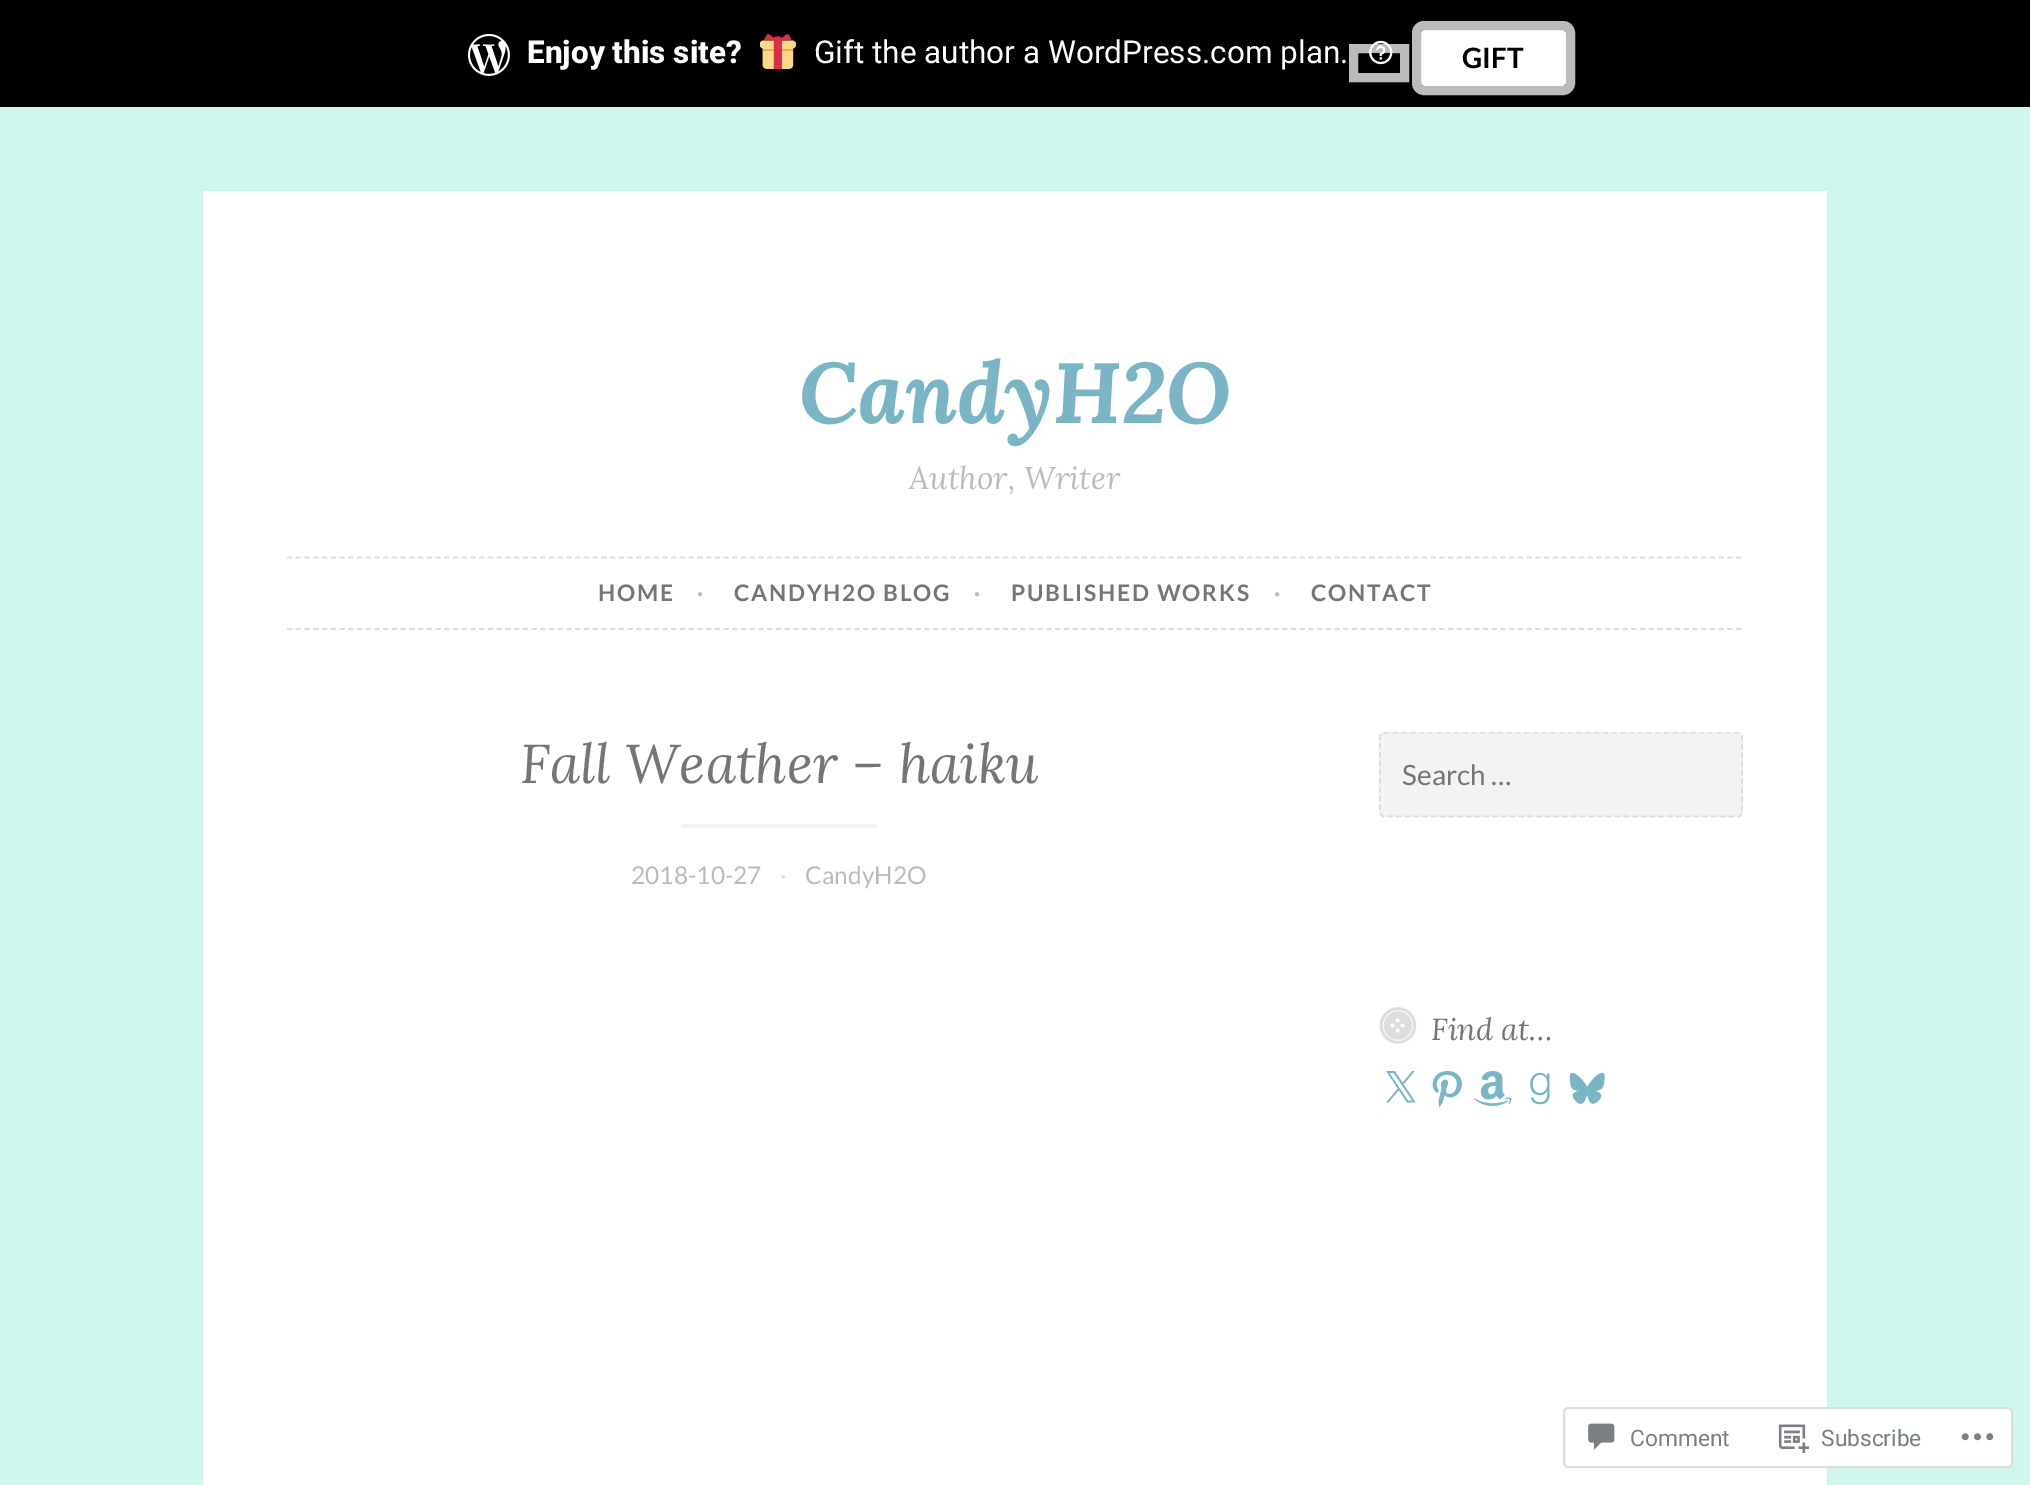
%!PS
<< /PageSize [2030 1485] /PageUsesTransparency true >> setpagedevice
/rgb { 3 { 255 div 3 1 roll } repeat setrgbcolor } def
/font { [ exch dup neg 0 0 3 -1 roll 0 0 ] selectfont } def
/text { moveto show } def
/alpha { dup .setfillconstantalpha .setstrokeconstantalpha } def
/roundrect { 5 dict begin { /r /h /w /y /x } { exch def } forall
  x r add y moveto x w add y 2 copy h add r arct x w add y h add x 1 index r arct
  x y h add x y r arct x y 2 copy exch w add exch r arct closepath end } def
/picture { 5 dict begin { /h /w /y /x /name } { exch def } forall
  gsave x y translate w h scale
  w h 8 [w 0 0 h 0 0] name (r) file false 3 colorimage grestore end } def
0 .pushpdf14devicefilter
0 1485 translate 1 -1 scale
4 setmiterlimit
205 247 237 rgb
0 0 2030 1485 rectfill
0 0 0 rgb
0 0 2030 107 rectfill
(img_01.rgb) 467 33 43 43 picture
(img_02.rgb) 760 34 36 35 picture
187 187 187 rgb
9 setlinewidth
1353.5 48.5 51 29 rectstroke
(img_03.rgb) 1369 40 24 25 picture
255 255 255 rgb
1421 30 145 56 4 roundrect fill
187 187 187 rgb
1416.5 25.5 154 65 7.5 roundrect stroke
255 255 255 rgb
203 191 1624 1294 rectfill
221 221 221 rgb
1.8 setlinewidth
[5.25 3.48] 0 setdash
287 557.5 moveto 1456 0 rlineto stroke
287 629 moveto 1456 0 rlineto stroke
243 243 243 rgb
681 824 196 4 rectfill
1379 732 364 85 5 roundrect fill
gsave
1379 732 364 451 rectclip
221 221 221 rgb
[5.25 3.5] 0 setdash
1384 732.5 moveto 354 0 rlineto 2 0 4 2 4 4.5 rcurveto 0 75 rlineto 0 2.5 -2 4.5 -4 4.5 rcurveto -354 0 rlineto -2 0 -4 -2 -4 -4.5 rcurveto 0 -75 rlineto 0 -2.5 2 -4.5 4 -4.5 rcurveto closepath stroke
grestore
(img_04.rgb) 1379 1007 38 37 picture
(img_05.rgb) 1386 1071 30 32 picture
(img_06.rgb) 1432 1071 30 37 picture
(img_07.rgb) 1474 1071 38 35 picture
(img_08.rgb) 1530 1072 20 33 picture
(img_09.rgb) 1569 1072 36 32 picture
0.98 alpha
255 255 255 rgb
1563 1407 450 61 5 roundrect fill
220 220 222 rgb
2 setlinewidth
[] 0 setdash
1564 1408 448 59 4 roundrect stroke
1 alpha
(img_10.rgb) 1588 1423 27 27 picture
(img_11.rgb) 1778 1424 32 29 picture
(img_12.rgb) 1961 1433 33 8 picture
/Roboto-ExtraBold 31.5 font
255 255 255 rgb
(Enjoy this site?) 527 63 text
/Roboto-Regular 31.5 font
(Gift the author a WordPress.com plan.) 814 63 text
/Lato-Bold 28 font
0 0 0 rgb
(GIFT) 1462 68 text
/Lora-BoldItalic 85.5 font
121 181 196 rgb
(CandyH2O) 799 423 text
/Lora-Italic 31.5 font
187 187 187 rgb
(Author, Writer) 909 489 text
/Lato-Bold 22.75 font
117 117 117 rgb
598 601 moveto 1.75 0 (HOME) ashow
187 187 187 rgb
697 601 moveto 1.75 0 (·) ashow
117 117 117 rgb
734 601 moveto 1.75 0 (CANDYH2O BLOG) ashow
187 187 187 rgb
974 601 moveto 1.75 0 (·) ashow
117 117 117 rgb
1011 601 moveto 1.75 0 (PUBLISHED WORKS) ashow
187 187 187 rgb
1274 601 moveto 1.75 0 (·) ashow
117 117 117 rgb
1311 601 moveto 1.75 0 (CONTACT) ashow
/Lora-Italic 54.75 font
(Fall Weather – haiku) 520 783 text
/Lato-Regular 24.5 font
187 187 187 rgb
(2018-10-27) 631 884 text
221 221 221 rgb
(·) 780 884 text
187 187 187 rgb
(CandyH2O) 805 884 text
/Lato-Regular 28 font
117 117 117 rgb
(Search …) 1402 785 text
/Lora-Italic 30.5 font
(Find at…) 1431 1040 text
/Roboto-Regular 22.75 font
123 127 133 rgb
(Comment) 1630 1446 text
(Subscribe) 1821 1446 text
.poppdf14devicefilter showpage
